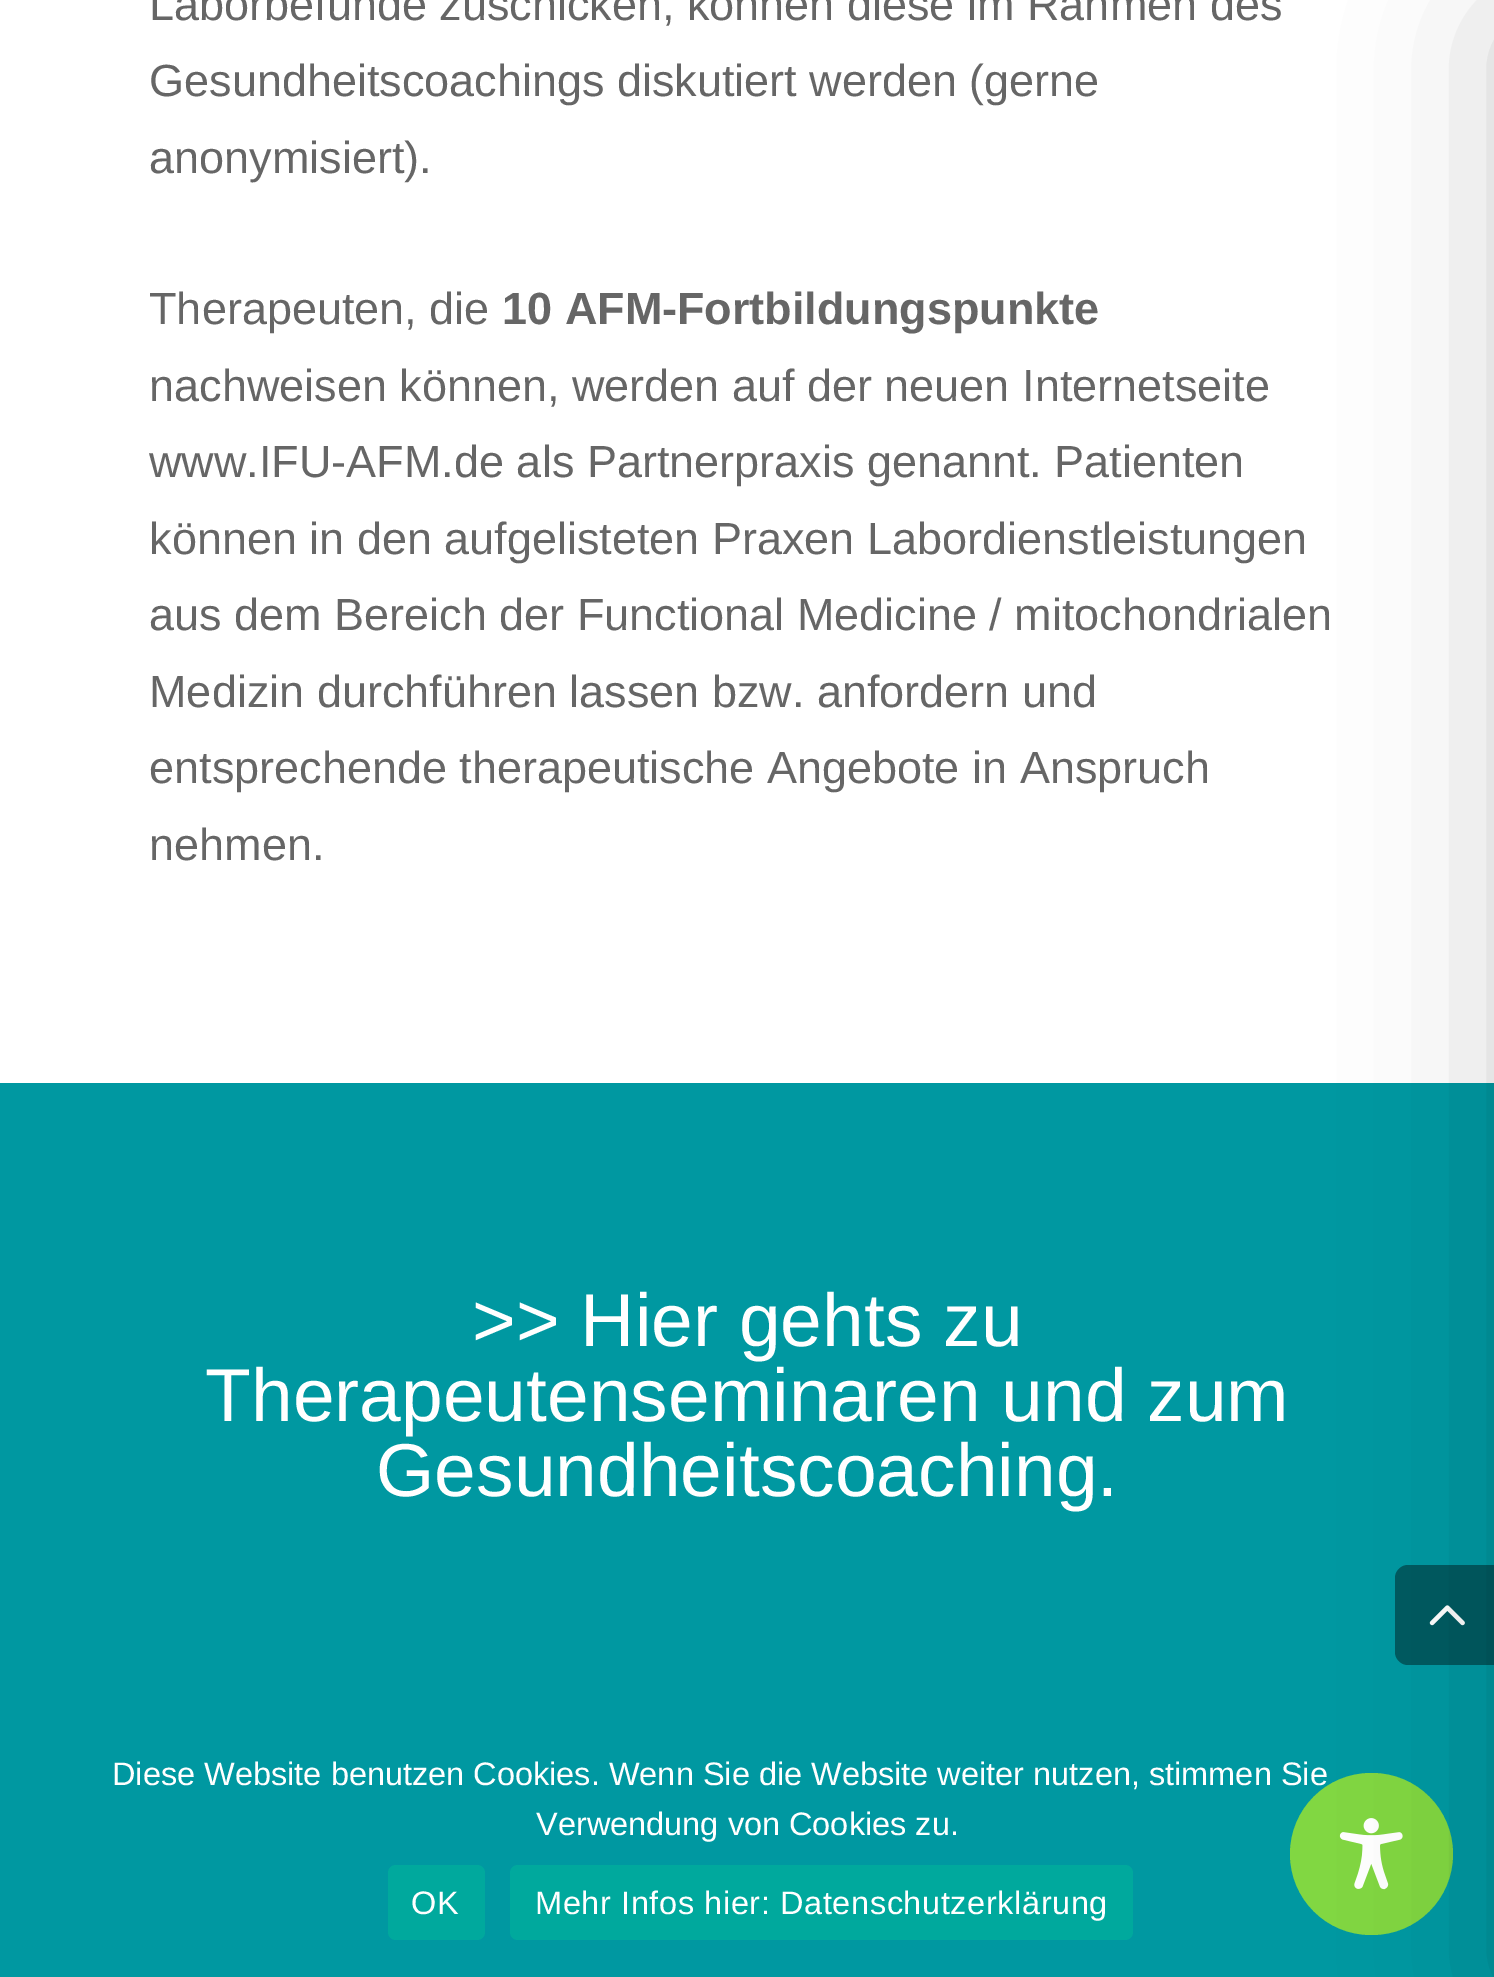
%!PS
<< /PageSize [1494 1977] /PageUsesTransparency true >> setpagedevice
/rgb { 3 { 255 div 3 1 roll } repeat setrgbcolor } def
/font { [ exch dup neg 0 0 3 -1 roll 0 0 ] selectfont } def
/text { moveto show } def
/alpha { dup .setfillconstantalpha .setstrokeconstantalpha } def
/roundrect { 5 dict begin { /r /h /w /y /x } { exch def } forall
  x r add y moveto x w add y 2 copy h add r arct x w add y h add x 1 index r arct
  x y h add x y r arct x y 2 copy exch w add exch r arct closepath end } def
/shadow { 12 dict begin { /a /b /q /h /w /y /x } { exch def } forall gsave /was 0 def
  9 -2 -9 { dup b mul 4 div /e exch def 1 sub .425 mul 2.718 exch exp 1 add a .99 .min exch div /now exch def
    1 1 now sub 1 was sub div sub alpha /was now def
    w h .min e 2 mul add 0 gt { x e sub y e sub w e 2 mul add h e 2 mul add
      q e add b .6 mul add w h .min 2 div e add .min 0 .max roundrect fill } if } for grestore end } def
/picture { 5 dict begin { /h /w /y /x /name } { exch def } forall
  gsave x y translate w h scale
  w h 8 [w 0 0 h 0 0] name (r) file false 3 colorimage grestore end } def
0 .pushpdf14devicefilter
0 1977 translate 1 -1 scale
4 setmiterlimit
255 255 255 rgb
0 0 1494 1977 rectfill
0 152 161 rgb
0 1083 1494 894 rectfill
0 91 97 rgb
1408 1565 moveto 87 0 rlineto 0 100 rlineto -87 0 rlineto -7 0 -13 -6 -13 -13 rcurveto 0 -74 rlineto 0 -7 6 -13 13 -13 rcurveto closepath fill
(img_01.rgb) 1429 1605 36 21 picture
0 169 157 rgb
388 1865 97 75 8 roundrect fill
510 1865 623 75 8 roundrect fill
/LiberationSans-Regular 45 font
102 102 102 rgb
(Laborbefunde zuschicken, können diese im Rahmen des) 149 20 text
(Gesundheitscoachings diskutiert werden \(gerne) 149 96 text
(anonymisiert\).) 149 173 text
(Therapeuten, die) 149 324 text
/LiberationSans-Bold 45 font
(10 AFM-Fortbildungspunkte) 502 324 text
/LiberationSans-Regular 45 font
(nachweisen können, werden auf der neuen Internetseite) 149 401 text
(www.IFU-AFM.de als Partnerpraxis genannt. Patienten) 149 477 text
(können in den aufgelisteten Praxen Labordienstleistungen) 149 554 text
(aus dem Bereich der Functional Medicine / mitochondrialen) 149 630 text
(Medizin durchführen lassen bzw. anfordern und) 149 707 text
(entsprechende therapeutische Angebote in Anspruch) 149 783 text
(nehmen.) 149 860 text
/LiberationSans-Regular 75 font
255 255 255 rgb
(>> Hier gehts zu) 472 1346 text
(Therapeutenseminaren und zum) 205 1421 text
(Gesundheitscoaching.) 376 1496 text
/LiberationSans-Regular 32.5 font
(Diese Website benutzen Cookies. Wenn Sie die Website weiter nutzen, stimmen Sie) 112 1785 text
(Verwendung von Cookies zu.) 536 1835 text
411 1914 moveto 0.6 0 (OK) ashow
535 1914 moveto 0.6 0 (Mehr Infos hier: Datenschutzerklärung) ashow
129 215 66 rgb
1290 1773 163 162 81 roundrect fill
(img_02.rgb) 1339 1818 64 72 picture
0 0 0 rgb
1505 25 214 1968 0 75 0.2 shadow
.poppdf14devicefilter showpage
